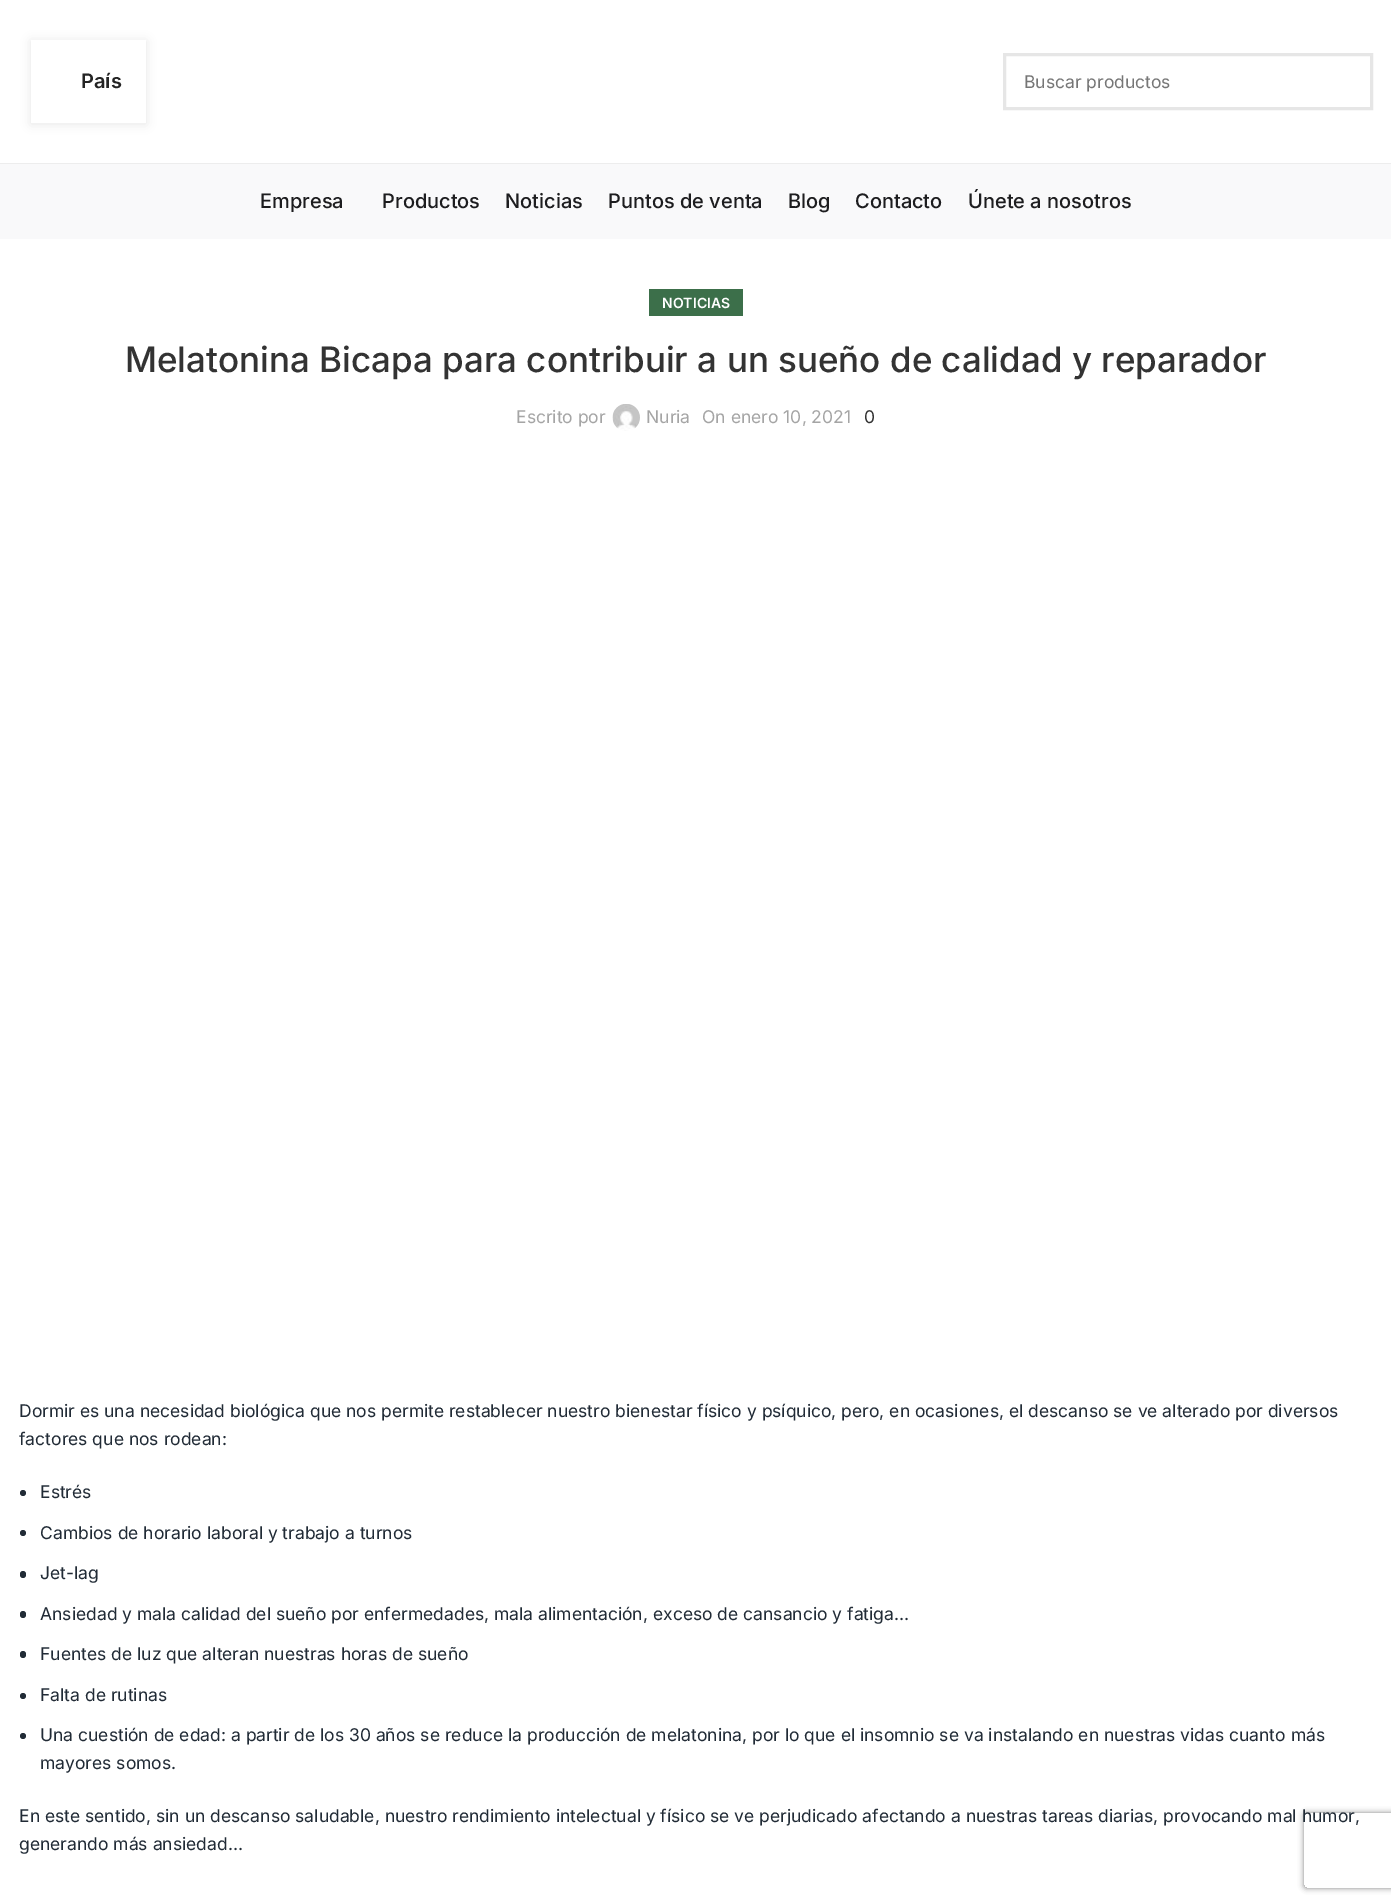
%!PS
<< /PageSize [1391 1904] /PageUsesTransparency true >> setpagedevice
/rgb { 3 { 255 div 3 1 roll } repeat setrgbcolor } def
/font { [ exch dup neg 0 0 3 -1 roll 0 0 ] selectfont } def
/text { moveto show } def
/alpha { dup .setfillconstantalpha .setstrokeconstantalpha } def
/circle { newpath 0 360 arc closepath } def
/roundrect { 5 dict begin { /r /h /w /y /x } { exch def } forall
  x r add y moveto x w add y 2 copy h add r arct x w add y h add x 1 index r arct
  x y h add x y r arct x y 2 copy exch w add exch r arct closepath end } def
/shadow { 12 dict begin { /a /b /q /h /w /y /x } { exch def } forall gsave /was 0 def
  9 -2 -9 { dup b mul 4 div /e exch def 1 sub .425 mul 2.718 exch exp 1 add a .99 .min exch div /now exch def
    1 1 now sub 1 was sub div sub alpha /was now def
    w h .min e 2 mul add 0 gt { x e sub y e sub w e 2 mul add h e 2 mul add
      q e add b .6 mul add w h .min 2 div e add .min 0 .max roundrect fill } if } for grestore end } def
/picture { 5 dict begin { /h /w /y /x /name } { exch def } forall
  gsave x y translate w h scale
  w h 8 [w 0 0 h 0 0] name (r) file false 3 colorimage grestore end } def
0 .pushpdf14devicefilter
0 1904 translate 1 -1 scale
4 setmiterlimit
255 255 255 rgb
0 0 1391 1904 rectfill
237 237 237 rgb
0 163 1391 1 rectfill
gsave
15 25 moveto 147 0 rlineto 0 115 rlineto -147 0 rlineto closepath 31 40 moveto 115 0 rlineto 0 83 rlineto -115 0 rlineto closepath eoclip newpath
0 0 0 rgb
31 41 115 83 0 5 0.1 shadow
grestore
230 230 230 rgb
3 setlinewidth
1004.5 54.5 367 54 rectstroke
249 249 250 rgb
0 164 1391 75 rectfill
60 111 74 rgb
649 289 94 27 rectfill
(img_01.rgb) 612 404 28 27 picture
33 43 54 rgb
23 1493 3 circle fill
23 1533 3 circle fill
20 1571 6 7 3 roundrect fill
20 1611 6 7 3 roundrect fill
20 1651 6 7 3 roundrect fill
23 1696 3 circle fill
23 1736 3 circle fill
gsave
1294 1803 moveto 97 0 rlineto 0 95 rlineto -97 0 rlineto closepath 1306.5 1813 moveto 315 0 rlineto 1.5 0 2.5 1 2.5 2.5 rcurveto 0 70 rlineto 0 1.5 -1 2.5 -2.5 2.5 rcurveto -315 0 rlineto -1.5 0 -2.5 -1 -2.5 -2.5 rcurveto 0 -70 rlineto 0 -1.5 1 -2.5 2.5 -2.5 rcurveto closepath eoclip newpath
128 128 128 rgb
1304 1813 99 75 2.5 3 1 shadow
grestore
/Inter-SemiBold 20 font
36 36 36 rgb
(País) 81 88 text
/Inter-Regular 17.5 font
118 118 118 rgb
(Buscar productos) 1024 88 text
/Inter-Medium 20 font
29 29 31 rgb
(Empresa) 260 208 text
(Productos) 382 208 text
(Noticias) 505 208 text
(Puntos de venta) 608 208 text
(Blog) 788 208 text
(Contacto) 855 208 text
(Únete a nosotros) 968 208 text
/Inter-SemiBold 14 font
255 255 255 rgb
(NOTICIAS) 662 308 text
/Inter-Medium 35 font
51 51 51 rgb
(Melatonina Bicapa para contribuir a un sueño de calidad y reparador) 125 372 text
/Inter-Regular 17.5 font
165 165 165 rgb
(Escrito por) 516 423 text
(Nuria) 646 423 text
(On enero 10, 2021) 702 423 text
51 51 51 rgb
(0) 864 423 text
33 43 54 rgb
(Dormir es una necesidad biológica que nos permite restablecer nuestro bienestar físico y psíquico, pero, en ocasiones, el descanso se ve alterado por diversos) 19 1417 text
(factores que nos rodean:) 19 1445 text
(Estrés) 40 1498 text
(Cambios de horario laboral y trabajo a turnos) 40 1539 text
(Jet-lag) 40 1579 text
(Ansiedad y mala calidad del sueño por enfermedades, mala alimentación, exceso de cansancio y fatiga…) 40 1620 text
(Fuentes de luz que alteran nuestras horas de sueño) 40 1660 text
(Falta de rutinas) 40 1701 text
(Una cuestión de edad: a partir de los 30 años se reduce la producción de melatonina, por lo que el insomnio se va instalando en nuestras vidas cuanto más) 40 1741 text
(mayores somos.) 40 1769 text
(En este sentido, sin un descanso saludable, nuestro rendimiento intelectual y físico se ve perjudicado afectando a nuestras tareas diarias, provocando mal humor,) 19 1822 text
(generando más ansiedad…) 19 1850 text
.poppdf14devicefilter showpage
